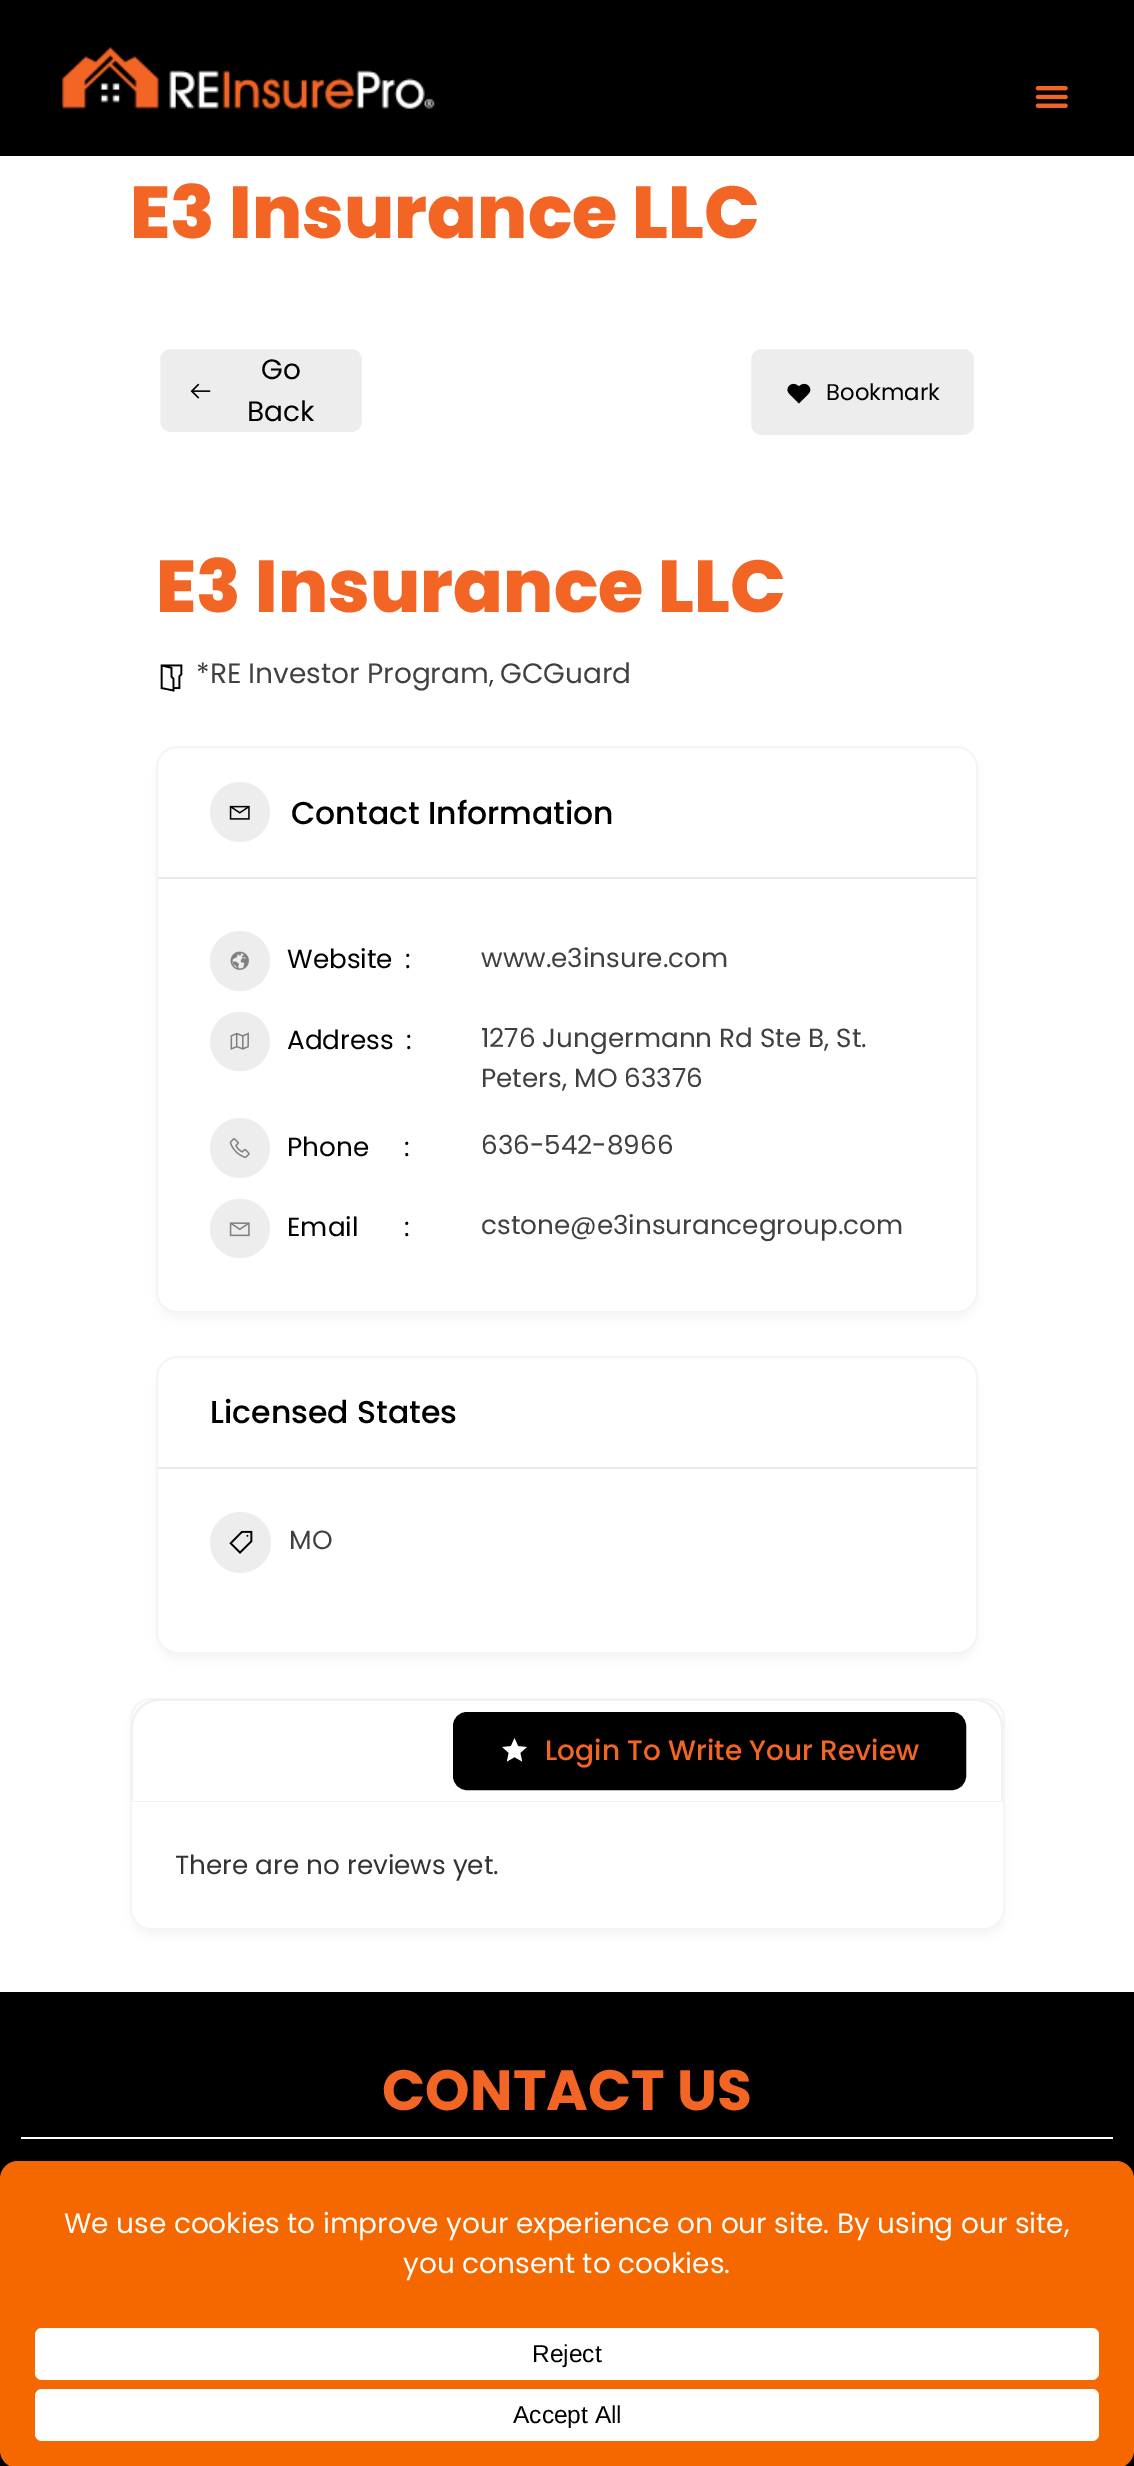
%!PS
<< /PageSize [1134 2466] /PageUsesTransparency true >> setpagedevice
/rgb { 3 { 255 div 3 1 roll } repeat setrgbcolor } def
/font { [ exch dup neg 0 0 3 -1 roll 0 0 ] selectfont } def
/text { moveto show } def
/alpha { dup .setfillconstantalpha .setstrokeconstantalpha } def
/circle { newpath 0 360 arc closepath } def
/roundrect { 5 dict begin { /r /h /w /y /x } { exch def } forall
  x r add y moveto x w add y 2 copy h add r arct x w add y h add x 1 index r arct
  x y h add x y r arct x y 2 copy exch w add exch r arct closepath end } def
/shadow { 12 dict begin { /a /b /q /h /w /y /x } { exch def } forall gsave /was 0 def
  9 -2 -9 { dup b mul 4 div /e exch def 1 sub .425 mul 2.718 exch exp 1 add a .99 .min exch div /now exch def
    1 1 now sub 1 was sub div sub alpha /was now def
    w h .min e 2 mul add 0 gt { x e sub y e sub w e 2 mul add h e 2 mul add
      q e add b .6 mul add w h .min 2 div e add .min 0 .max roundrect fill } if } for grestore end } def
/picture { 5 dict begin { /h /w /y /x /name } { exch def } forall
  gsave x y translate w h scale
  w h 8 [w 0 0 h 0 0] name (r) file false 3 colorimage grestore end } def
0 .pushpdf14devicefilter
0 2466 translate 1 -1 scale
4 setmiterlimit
255 255 255 rgb
0 0 1134 2466 rectfill
0 0 0 rgb
0 0 1134 156 rectfill
(img_01.rgb) 62 47 373 62 picture
(img_02.rgb) 1035 86 33 22 picture
237 237 237 rgb
158 347 206 87 12 roundrect gsave fill grestore
255 255 255 rgb
4 setlinewidth
stroke
(img_03.rgb) 190 383 21 16 picture
237 237 237 rgb
749 347 227 90 12 roundrect gsave fill grestore
255 255 255 rgb
stroke
(img_04.rgb) 787 383 24 21 picture
(img_05.rgb) 160 664 23 28 picture
0 0 0 rgb
156 753 822 567 21 5 0.04 shadow
255 255 255 rgb
157 747 820 565 20 roundrect gsave fill grestore
245 245 245 rgb
2 setlinewidth
stroke
233 233 233 rgb
158 877 819 2 rectfill
237 237 237 rgb
240 812 30 circle fill
(img_06.rgb) 229 805 21 15 picture
240 961 30 circle fill
(img_07.rgb) 230 951 19 19 picture
210 1012 60 59 29.5 roundrect fill
(img_08.rgb) 230 1032 19 18 picture
240 1148 30 circle fill
(img_09.rgb) 229 1138 21 20 picture
210 1199 60 59 29.5 roundrect fill
(img_10.rgb) 229 1222 21 15 picture
0 0 0 rgb
156 1363 822 298 21 5 0.04 shadow
255 255 255 rgb
157 1357 820 296 20 roundrect gsave fill grestore
245 245 245 rgb
stroke
233 233 233 rgb
158 1467 819 2 rectfill
237 237 237 rgb
240.5 1542.5 30.5 circle fill
(img_11.rgb) 229 1530 24 24 picture
0 0 0 rgb
130 1705 875 232 21 5 0.04 shadow
255 255 255 rgb
131 1699 873 230 20 roundrect gsave fill grestore
245 245 245 rgb
stroke
255 255 255 rgb
159 1699 moveto 816 0 rlineto 15.5 0 28 12.5 28 28 rcurveto 0 76 rlineto -872 0 rlineto 0 -76 rlineto 0 -15.5 12.5 -28 28 -28 rcurveto closepath fill
239 241 246 rgb
159 1701 moveto -7 0 -13 3 -18 8 rcurveto -2 -2 rlineto 5 -4 10 -7 16 -8 rcurveto 824 0 rlineto 6 1 11 4 16 8 rcurveto -2 2 rlineto -5 -5 -11 -8 -18 -8 rcurveto closepath fill
1003 1802 moveto -2 -1 rlineto 0 -74 rlineto 0 -7 -3 -13 -8 -18 rcurveto 2 -2 rlineto 4 5 7 10 8 16 rcurveto closepath fill
242 242 242 rgb
1002 1802 moveto -870 0 rlineto 1 -1 rlineto 868 0 rlineto closepath fill
239 241 246 rgb
131 1723 moveto 1 -6 4 -11 8 -16 rcurveto 2 2 rlineto -5 5 -8 11 -8 18 rcurveto 0 74 rlineto -2 1 rlineto closepath fill
0 0 0 rgb
454 1713 511 76 13 roundrect gsave fill grestore
stroke
(img_12.rgb) 502 1738 25 24 picture
0 1992 1134 474 rectfill
255 255 255 rgb
21 2137 1092 2 rectfill
245 104 0 rgb
0 2161 1134 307 18 roundrect fill
255 255 255 rgb
35 2328 1064 52 7 roundrect fill
35 2389 1064 52 7 roundrect fill
/Poppins-ExtraBold 73.5 font
242 101 37 rgb
(E3 Insurance LLC) 130 238 text
/Poppins-Regular 28 font
0 0 0 rgb
(Go) 261 379 text
(Back) 247 421 text
/Poppins-Regular 22.75 font
(Bookmark) 826 400 text
/Poppins-ExtraBold 73.5 font
242 101 37 rgb
(E3 Insurance LLC) 156 612 text
/Poppins-Regular 28 font
64 64 64 rgb
(*RE Investor Program) 196 683 text
/Poppins-Regular 24.5 font
51 51 51 rgb
(,) 489 683 text
/Poppins-Regular 28 font
64 64 64 rgb
(GCGuard) 500 683 text
/Poppins-Medium 31.5 font
0 0 0 rgb
(Contact Information) 291 824 text
/Poppins-Regular 26.25 font
(Website) 287 968 text
(:) 405 968 text
64 64 64 rgb
(www.e3insure.com) 481 967 text
0 0 0 rgb
(Address) 287 1049 text
(:) 406 1049 text
64 64 64 rgb
(1276 Jungermann Rd Ste B, St.) 481 1047 text
(Peters, MO 63376) 481 1087 text
0 0 0 rgb
(Phone) 287 1156 text
(:) 404 1156 text
64 64 64 rgb
(636-542-8966) 481 1154 text
0 0 0 rgb
(Email) 287 1236 text
(:) 404 1236 text
64 64 64 rgb
(cstone@e3insurancegroup.com) 481 1234 text
/Poppins-Medium 31.5 font
0 0 0 rgb
(Licensed States) 210 1423 text
/Poppins-Regular 26.25 font
64 64 64 rgb
(MO) 289 1549 text
/Poppins-Medium 28 font
242 101 37 rgb
(Login To Write Your Review) 545 1760 text
/Poppins-Regular 26.25 font
51 51 51 rgb
(There are no reviews yet.) 175 1874 text
/Poppins-Bold 56.75 font
242 101 37 rgb
(CONTACT US) 382 2110 text
/Poppins-Regular 28 font
255 255 255 rgb
(We use cookies to improve your experience on our site. By using our site,) 64 2233 text
(you consent to cookies.) 403 2273 text
/LiberationSans-Regular 24.5 font
0 0 0 rgb
(Reject) 532 2362 text
(Accept All) 513 2423 text
.poppdf14devicefilter showpage
